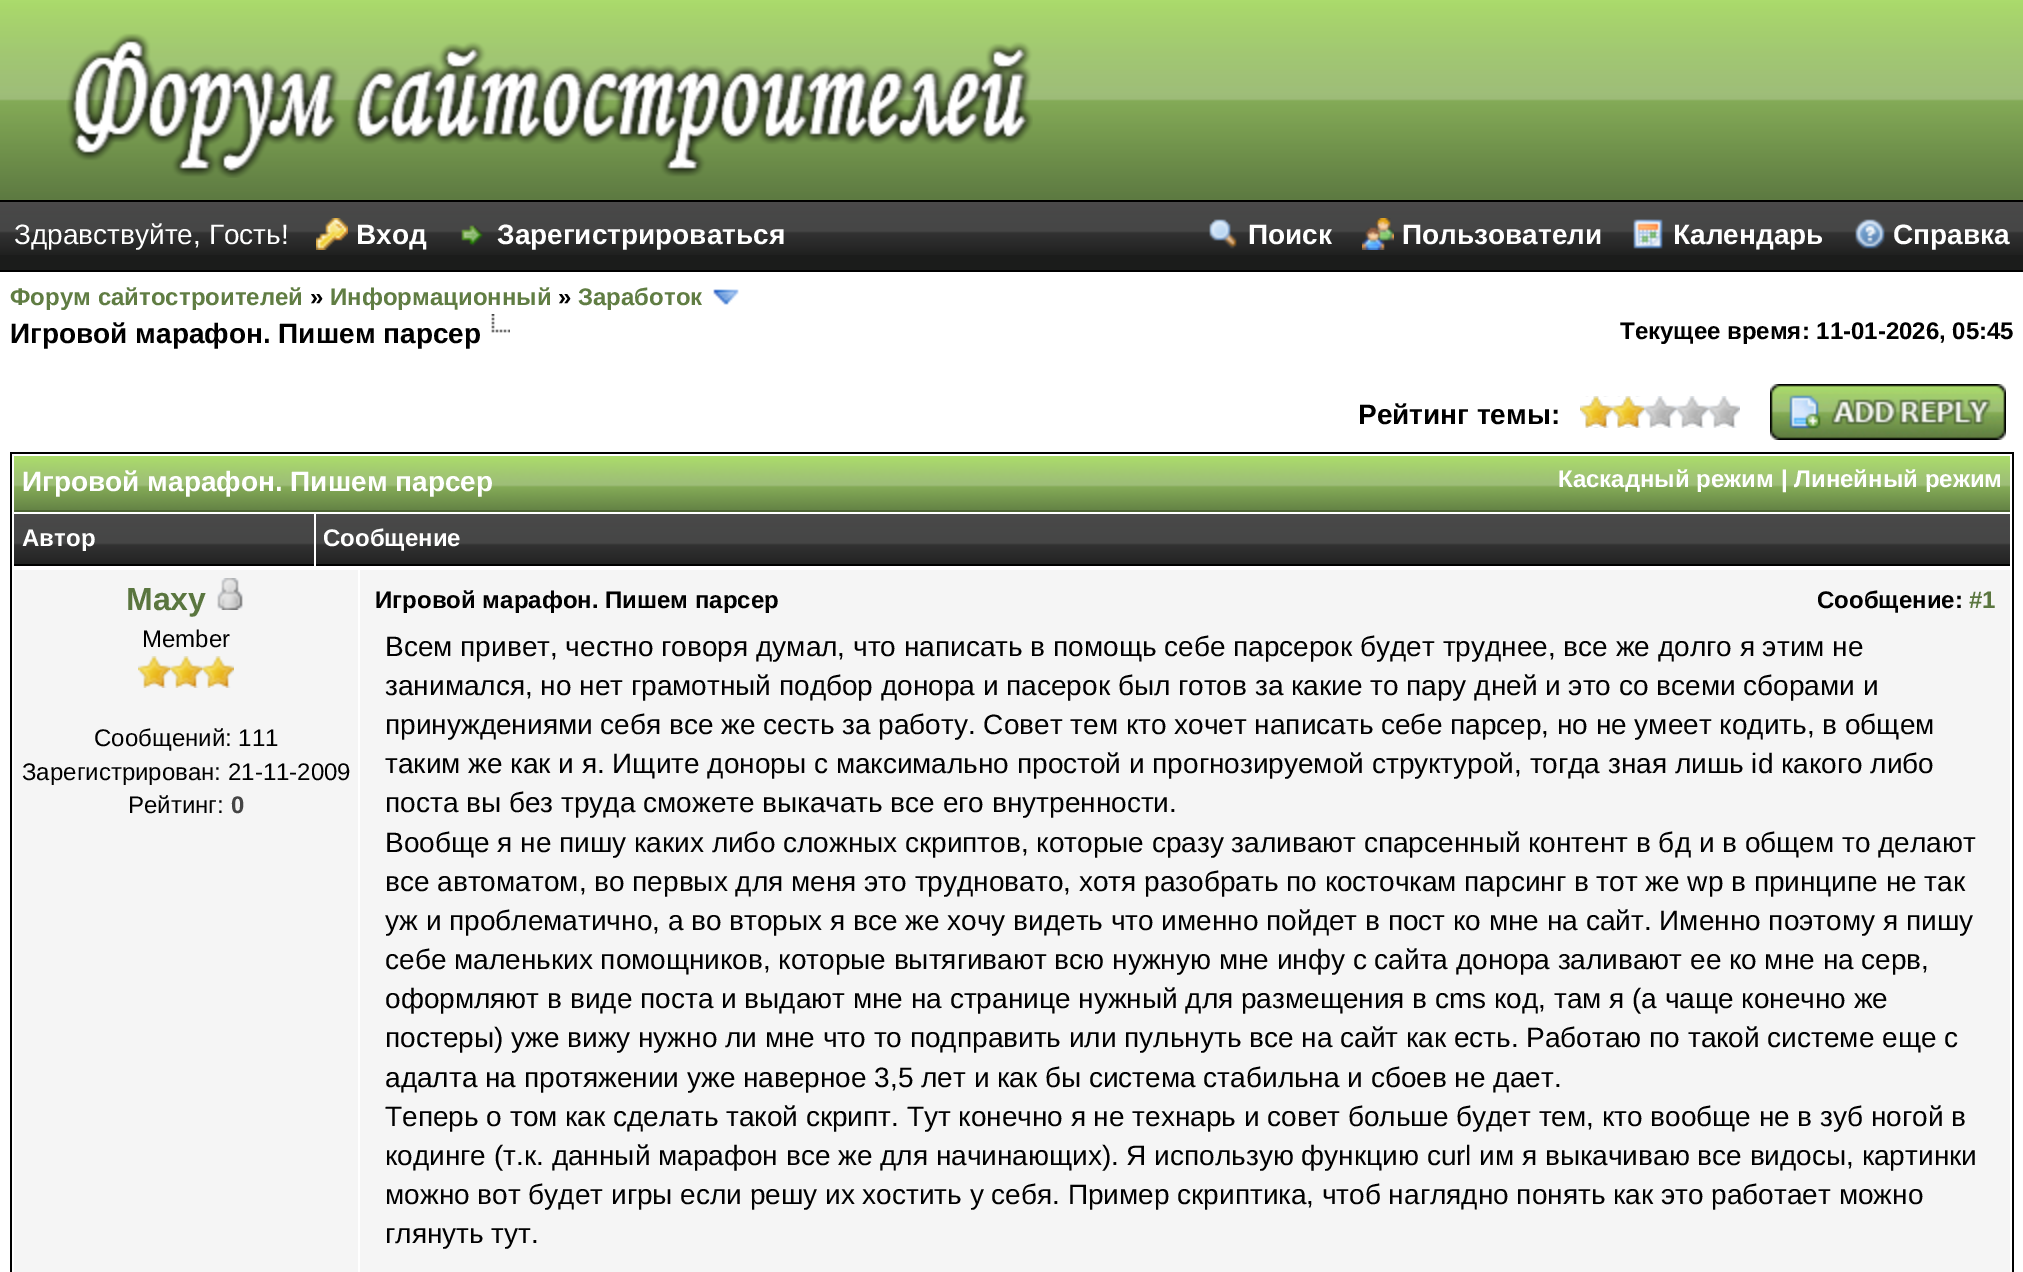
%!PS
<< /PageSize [2023 1272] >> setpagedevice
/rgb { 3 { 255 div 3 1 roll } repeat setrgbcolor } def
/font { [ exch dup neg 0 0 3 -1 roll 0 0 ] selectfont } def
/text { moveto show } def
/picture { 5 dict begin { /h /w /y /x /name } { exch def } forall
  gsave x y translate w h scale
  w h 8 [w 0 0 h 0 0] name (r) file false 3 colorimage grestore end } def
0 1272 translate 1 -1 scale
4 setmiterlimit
255 255 255 rgb
0 0 2023 1272 rectfill
(img_01.rgb) 0 0 2023 200 picture
0 0 0 rgb
0 200 2023 2 rectfill
(img_02.rgb) 66 33 967 145 picture
27 28 27 rgb
0 255 2023 15 rectfill
(img_03.rgb) 0 202 2023 53 picture
0 0 0 rgb
0 270 2023 2 rectfill
(img_04.rgb) 316 218 32 32 picture
(img_05.rgb) 461 225 22 21 picture
(img_06.rgb) 1209 219 28 30 picture
(img_07.rgb) 1362 218 32 32 picture
(img_08.rgb) 1633 219 30 30 picture
(img_09.rgb) 1855 219 30 30 picture
(img_10.rgb) 713 289 26 16 picture
(img_11.rgb) 491 314 19 19 picture
(img_12.rgb) 1580 396 160 32 picture
(img_13.rgb) 1580 396 64 32 picture
(img_14.rgb) 1770 384 236 56 picture
10 452 2004 2 rectfill
2012 452 2 820 rectfill
10 452 2 820 rectfill
(img_15.rgb) 14 456 1996 54 picture
78 101 51 rgb
14 510 1996 2 rectfill
(img_16.rgb) 14 514 300 50 picture
0 0 0 rgb
14 564 300 2 rectfill
(img_17.rgb) 316 514 1694 50 picture
316 564 1694 2 rectfill
245 245 245 rgb
14 570 344 702 rectfill
(img_18.rgb) 217 578 26 32 picture
(img_19.rgb) 138 656 32 32 picture
(img_19.rgb) 170 656 32 32 picture
(img_19.rgb) 202 656 32 32 picture
360 570 1650 702 rectfill
/LiberationSans-Regular 28 font
255 255 255 rgb
(Здравствуйте, Гость!) 14 244 text
/LiberationSans-Bold 28 font
(Вход) 356 244 text
(Зарегистрироваться) 497 244 text
(Поиск) 1248 244 text
(Пользователи) 1402 244 text
(Календарь) 1673 244 text
(Справка) 1893 244 text
/LiberationSans-Bold 24 font
96 125 67 rgb
(Форум сайтостроителей) 10 305 text
0 0 0 rgb
(») 310 305 text
96 125 67 rgb
(Информационный) 330 305 text
0 0 0 rgb
(») 558 305 text
96 125 67 rgb
(Заработок) 578 305 text
/LiberationSans-Bold 28 font
0 0 0 rgb
(Игровой марафон. Пишем парсер) 10 343 text
/LiberationSans-Bold 24 font
(Текущее время: 11-01-2026, 05:45) 1620 339 text
/LiberationSans-Bold 28 font
(Рейтинг темы:) 1358 424 text
255 255 255 rgb
(Игровой марафон. Пишем парсер) 22 491 text
/LiberationSans-Bold 24 font
(Каскадный режим | Линейный режим) 1558 487 text
(Автор) 22 546 text
(Сообщение) 323 546 text
/LiberationSans-Bold 32 font
90 118 63 rgb
(Maxy) 126 610 text
/LiberationSans-Regular 24 font
0 0 0 rgb
(Member) 142 647 text
(Сообщений: 111) 94 746 text
(Зарегистрирован: 21-11-2009) 22 780 text
(Рейтинг:) 128 813 text
/LiberationSans-Bold 24 font
68 68 68 rgb
(0) 231 813 text
0 0 0 rgb
(Игровой марафон. Пишем парсер) 375 608 text
(Сообщение:) 1817 608 text
90 118 63 rgb
(#1) 1969 608 text
/LiberationSans-Regular 28 font
0 0 0 rgb
(Всем привет, честно говоря думал, что написать в помощь себе парсерок будет труднее, все же долго я этим не) 385 656 text
(занимался, но нет грамотный подбор донора и пасерок был готов за какие то пару дней и это со всеми сборами и) 385 695 text
(принуждениями себя все же сесть за работу. Совет тем кто хочет написать себе парсер, но не умеет кодить, в общем) 385 734 text
(таким же как и я. Ищите доноры с максимально простой и прогнозируемой структурой, тогда зная лишь id какого либо) 385 773 text
(поста вы без труда сможете выкачать все его внутренности.) 385 812 text
(Вообще я не пишу каких либо сложных скриптов, которые сразу заливают спарсенный контент в бд и в общем то делают) 385 852 text
(все автоматом, во первых для меня это трудновато, хотя разобрать по косточкам парсинг в тот же wp в принципе не так) 385 891 text
(уж и проблематично, а во вторых я все же хочу видеть что именно пойдет в пост ко мне на сайт. Именно поэтому я пишу) 385 930 text
(себе маленьких помощников, которые вытягивают всю нужную мне инфу с сайта донора заливают ее ко мне на серв,) 385 969 text
(оформляют в виде поста и выдают мне на странице нужный для размещения в cms код, там я \(а чаще конечно же) 385 1008 text
(постеры\) уже вижу нужно ли мне что то подправить или пульнуть все на сайт как есть. Работаю по такой системе еще с) 385 1047 text
(адалта на протяжении уже наверное 3,5 лет и как бы система стабильна и сбоев не дает.) 385 1087 text
(Теперь о том как сделать такой скрипт. Тут конечно я не технарь и совет больше будет тем, кто вообще не в зуб ногой в) 385 1126 text
(кодинге \(т.к. данный марафон все же для начинающих\). Я использую функцию curl им я выкачиваю все видосы, картинки) 385 1165 text
(можно вот будет игры если решу их хостить у себя. Пример скриптика, чтоб наглядно понять как это работает можно) 385 1204 text
(глянуть тут.) 385 1243 text
showpage
